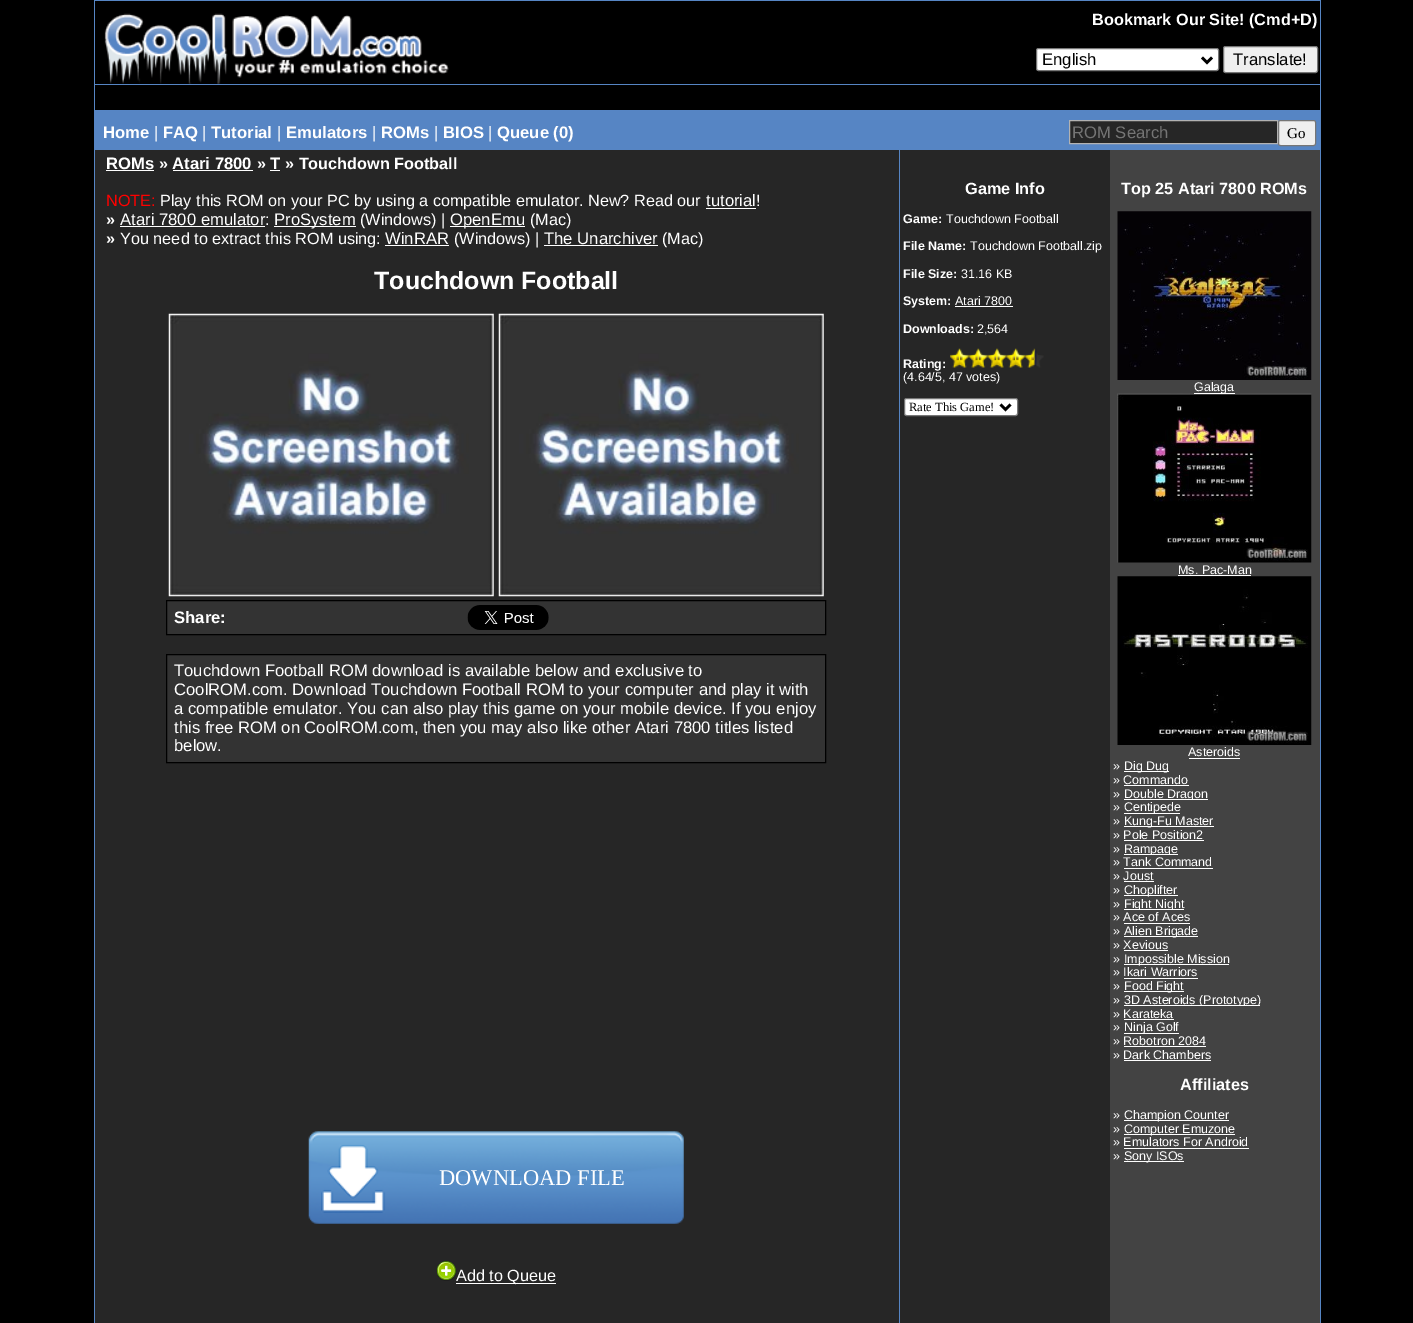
%!PS
<< /PageSize [1413 1323] >> setpagedevice
/rgb { 3 { 255 div 3 1 roll } repeat setrgbcolor } def
/font { [ exch dup neg 0 0 3 -1 roll 0 0 ] selectfont } def
/text { moveto show } def
/roundrect { 5 dict begin { /r /h /w /y /x } { exch def } forall
  x r add y moveto x w add y 2 copy h add r arct x w add y h add x 1 index r arct
  x y h add x y r arct x y 2 copy exch w add exch r arct closepath end } def
/picture { 5 dict begin { /h /w /y /x /name } { exch def } forall
  gsave x y translate w h scale
  w h 8 [w 0 0 h 0 0] name (r) file false 3 colorimage grestore end } def
0 1323 translate 1 -1 scale
4 setmiterlimit
0 0 0 rgb
0 0 1413 1323 rectfill
86 133 196 rgb
94 0 1227 1323 rectfill
0 0 0 rgb
95 1 1225 83 rectfill
(img_01.rgb) 104 13 345 71 picture
255 255 255 rgb
1036.5 48.5 182 22 2 roundrect gsave fill grestore
118 118 118 rgb
stroke
0 0 0 rgb
2.5 setlinewidth
1202 57.5 moveto 5 5 rlineto 5 -5 rlineto stroke
239 239 239 rgb
1223.5 46.5 94 26 2 roundrect gsave fill grestore
118 118 118 rgb
1 setlinewidth
stroke
0 0 0 rgb
95 85 1225 25 rectfill
38 38 38 rgb
1069.5 120.5 moveto 208 0 rlineto 0 23 rlineto -208 0 rlineto closepath gsave fill grestore
178 178 178 rgb
stroke
239 239 239 rgb
1278.5 120.5 37 25 2 roundrect gsave fill grestore
118 118 118 rgb
stroke
38 38 38 rgb
95 150 804 1173 rectfill
255 255 255 rgb
106 170 48 1 rectfill
173 170 80 1 rectfill
270 170 10 1 rectfill
706 208 50 1 rectfill
120 226 145 1 rectfill
274 226 82 1 rectfill
450 226 75 1 rectfill
385 245 64 1 rectfill
544 245 114 1 rectfill
(img_02.rgb) 168 313 326 284 picture
(img_02.rgb) 498 313 326 284 picture
51 51 51 rgb
166.5 600.5 moveto 659 0 rlineto 0 34 rlineto -659 0 rlineto closepath gsave fill grestore
0 0 0 rgb
stroke
(img_03.rgb) 467 605 82 25 picture
51 51 51 rgb
166.5 654.5 moveto 659 0 rlineto 0 108 rlineto -659 0 rlineto closepath gsave fill grestore
0 0 0 rgb
stroke
(img_04.rgb) 308 1131 376 93 picture
(img_05.rgb) 437 1261 19 20 picture
255 255 255 rgb
456 1283 100 1 rectfill
38 38 38 rgb
900 150 210 1173 rectfill
255 255 255 rgb
955 306 58 1 rectfill
(img_06.rgb) 950 348 19 20 picture
(img_07.rgb) 968 348 20 20 picture
(img_08.rgb) 987 348 20 20 picture
(img_09.rgb) 1006 348 19 20 picture
(img_10.rgb) 1025 348 19 20 picture
904.5 398.5 113 17 2 roundrect gsave fill grestore
118 118 118 rgb
stroke
0 0 0 rgb
2.5 setlinewidth
1000.5 404.5 moveto 5 5 rlineto 5 -5 rlineto stroke
67 67 67 rgb
1110 150 210 1173 rectfill
(img_11.rgb) 1117 211 195 169 picture
(img_12.rgb) 1117 393 195 170 picture
255 255 255 rgb
1194 393 41 1 rectfill
1178 575 73 1 rectfill
(img_13.rgb) 1117 576 195 169 picture
1189 758 51 1 rectfill
1124 771 45 1 rectfill
1124 785 65 1 rectfill
1124 799 84 1 rectfill
1124 813 56 1 rectfill
1124 826 90 1 rectfill
1124 840 80 1 rectfill
1124 854 54 1 rectfill
1124 868 89 1 rectfill
1124 881 30 1 rectfill
1124 895 54 1 rectfill
1124 909 60 1 rectfill
1124 923 66 1 rectfill
1124 936 74 1 rectfill
1124 950 44 1 rectfill
1124 964 105 1 rectfill
1124 978 74 1 rectfill
1124 991 60 1 rectfill
1124 1005 136 1 rectfill
1124 1019 50 1 rectfill
1124 1033 55 1 rectfill
1124 1046 82 1 rectfill
1124 1060 87 1 rectfill
1124 1120 105 1 rectfill
1124 1134 111 1 rectfill
1124 1148 125 1 rectfill
1124 1161 60 1 rectfill
/LiberationSans-Bold 16.25 font
(Bookmark Our Site! \(Cmd+D\)) 1092 25 text
/LiberationSans-Regular 16.65 font
0 0 0 rgb
(English) 1042 65 text
(Translate!) 1233 65 text
/LiberationSans-Bold 16.65 font
255 255 255 rgb
(Home) 103 138 text
/LiberationSans-Regular 16.65 font
(|) 154 138 text
/LiberationSans-Bold 16.65 font
(FAQ) 163 138 text
/LiberationSans-Regular 16.65 font
(|) 202 138 text
/LiberationSans-Bold 16.65 font
(Tutorial) 211 138 text
/LiberationSans-Regular 16.65 font
(|) 277 138 text
/LiberationSans-Bold 16.65 font
(Emulators) 286 138 text
/LiberationSans-Regular 16.65 font
(|) 372 138 text
/LiberationSans-Bold 16.65 font
(ROMs) 381 138 text
/LiberationSans-Regular 16.65 font
(|) 434 138 text
/LiberationSans-Bold 16.65 font
(BIOS) 443 138 text
/LiberationSans-Regular 16.65 font
(|) 488 138 text
/LiberationSans-Bold 16.65 font
(Queue \(0\)) 497 138 text
/LiberationSans-Regular 16.65 font
117 117 117 rgb
(ROM Search) 1072 138 text
/LiberationSerif-Regular 15 font
0 0 0 rgb
(Go) 1287 138 text
/LiberationSans-Bold 16.65 font
255 255 255 rgb
(ROMs) 106 169 text
/LiberationSans-Bold 16.25 font
(») 159 169 text
/LiberationSans-Bold 16.65 font
(Atari 7800) 172 169 text
/LiberationSans-Bold 16.25 font
(») 257 169 text
/LiberationSans-Bold 16.65 font
(T) 270 169 text
/LiberationSans-Bold 16.25 font
(» Touchdown Football) 285 169 text
/LiberationSans-Regular 16.25 font
255 0 0 rgb
(NOTE:) 106 206 text
255 255 255 rgb
(Play this ROM on your PC by using a compatible emulator. New? Read our) 160 206 text
/LiberationSans-Regular 16.65 font
(tutorial) 706 206 text
/LiberationSans-Regular 16.25 font
(!) 756 206 text
/LiberationSans-Bold 16.25 font
(») 106 225 text
/LiberationSans-Regular 16.65 font
(Atari 7800 emulator) 120 225 text
/LiberationSans-Regular 16.25 font
(:) 265 225 text
/LiberationSans-Regular 16.65 font
(ProSystem) 274 225 text
/LiberationSans-Regular 16.25 font
(\(Windows\) |) 360 225 text
/LiberationSans-Regular 16.65 font
(OpenEmu) 450 225 text
/LiberationSans-Regular 16.25 font
(\(Mac\)) 530 225 text
/LiberationSans-Bold 16.25 font
(») 106 244 text
/LiberationSans-Regular 16.25 font
(You need to extract this ROM using:) 120 244 text
/LiberationSans-Regular 16.65 font
(WinRAR) 385 244 text
/LiberationSans-Regular 16.25 font
(\(Windows\) |) 454 244 text
/LiberationSans-Regular 16.65 font
(The Unarchiver) 544 244 text
/LiberationSans-Regular 16.25 font
(\(Mac\)) 662 244 text
/LiberationSans-Bold 25 font
(Touchdown Football) 374 289 text
/LiberationSans-Bold 16.65 font
(Share:) 174 623 text
/LiberationSans-Regular 16.65 font
(Touchdown Football ROM download is available below and exclusive to) 174 676 text
(CoolROM.com. Download Touchdown Football ROM to your computer and play it with) 174 695 text
(a compatible emulator. You can also play this game on your mobile device. If you enjoy) 174 714 text
(this free ROM on CoolROM.com, then you may also like other Atari 7800 titles listed) 174 733 text
(below.) 174 751 text
/LiberationSerif-Regular 22.5 font
(DOWNLOAD FILE) 439 1185 text
/LiberationSans-Regular 16.25 font
(Add to Queue) 456 1281 text
/LiberationSans-Bold 16.25 font
(Game Info) 965 194 text
/LiberationSans-Bold 12.5 font
(Game:) 903 223 text
/LiberationSans-Regular 12.5 font
(Touchdown Football) 946 223 text
/LiberationSans-Bold 12.5 font
(File Name:) 903 250 text
/LiberationSans-Regular 12.5 font
(Touchdown Football.zip) 970 250 text
/LiberationSans-Bold 12.5 font
(File Size:) 903 278 text
/LiberationSans-Regular 12.5 font
(31.16 KB) 961 278 text
/LiberationSans-Bold 12.5 font
(System:) 903 305 text
/LiberationSans-Regular 12.5 font
(Atari 7800) 955 305 text
/LiberationSans-Bold 12.5 font
(Downloads:) 903 333 text
/LiberationSans-Regular 12.5 font
(2,564) 977 333 text
/LiberationSans-Bold 12.5 font
(Rating:) 903 368 text
/LiberationSans-Regular 12.5 font
(\(4.64/5, 47 votes\)) 903 381 text
/LiberationSerif-Regular 12.5 font
0 0 0 rgb
(Rate This Game!) 909 411 text
/LiberationSans-Bold 16.25 font
255 255 255 rgb
(Top 25 Atari 7800 ROMs) 1121 194 text
/LiberationSans-Regular 12.5 font
(Galaga) 1194 391 text
(Ms. Pac-Man) 1178 574 text
(Asteroids) 1188 756 text
(») 1113 770 text
(Dig Dug) 1124 770 text
(» Commando) 1113 784 text
(») 1113 798 text
gsave
1114 786 194 14 rectclip
(Double Dragon) 1124 798 text
grestore
(») 1113 811 text
(Centipede) 1124 811 text
(») 1113 825 text
(Kung-Fu Master) 1124 825 text
(» Pole Position2) 1113 839 text
(») 1113 853 text
gsave
1114 841 194 14 rectclip
(Rampage) 1124 853 text
grestore
(» Tank Command) 1113 866 text
(» Joust) 1113 880 text
(») 1113 894 text
(Choplifter) 1124 894 text
(») 1113 908 text
gsave
1114 896 194 14 rectclip
(Fight Night) 1124 908 text
grestore
(» Ace of Aces) 1113 921 text
(») 1113 935 text
(Alien Brigade) 1124 935 text
(» Xevious) 1113 949 text
(») 1113 963 text
(Impossible Mission) 1124 963 text
(» Ikari Warriors) 1113 976 text
(») 1113 990 text
(Food Fight) 1124 990 text
(») 1113 1004 text
gsave
1114 993 194 13 rectclip
(3D Asteroids \(Prototype\)) 1124 1004 text
grestore
(» Karateka) 1113 1018 text
(») 1113 1031 text
(Ninja Golf) 1124 1031 text
(» Robotron 2084) 1113 1045 text
(» Dark Chambers) 1113 1059 text
/LiberationSans-Bold 16.25 font
(Affiliates) 1180 1090 text
/LiberationSans-Regular 12.5 font
(») 1113 1119 text
(Champion Counter) 1124 1119 text
(») 1113 1133 text
(Computer Emuzone) 1124 1133 text
(» Emulators For Android) 1113 1146 text
(») 1113 1160 text
(Sony ISOs) 1124 1160 text
showpage
